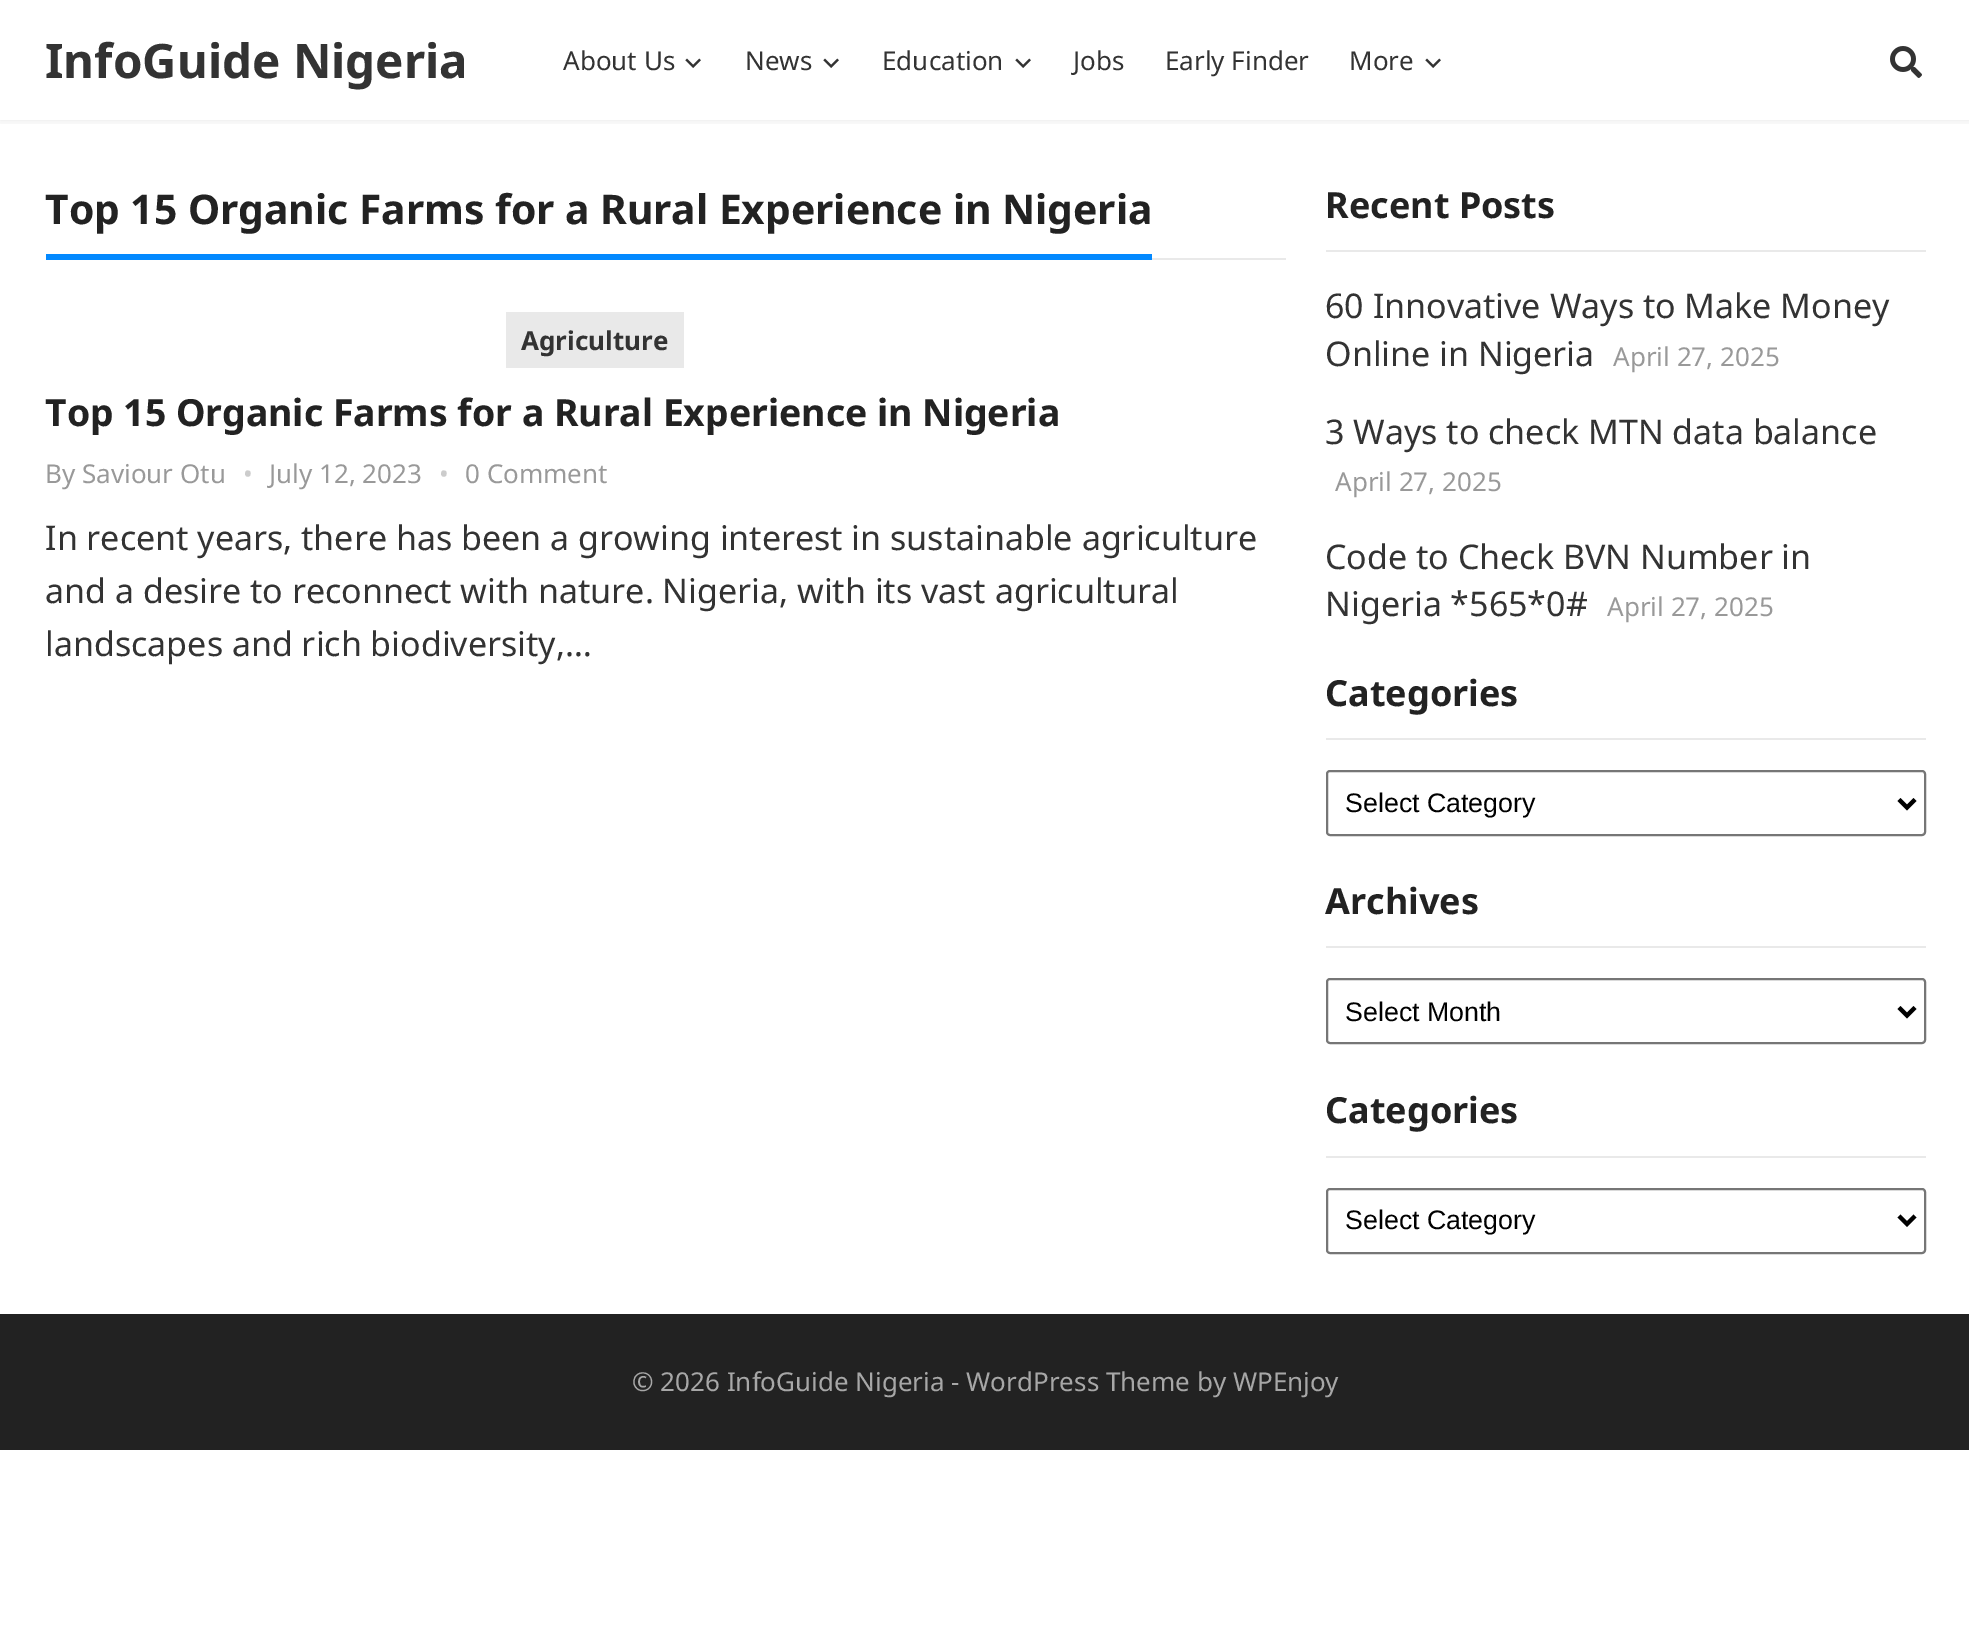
%!PS
<< /PageSize [1969 1626] /PageUsesTransparency true >> setpagedevice
/rgb { 3 { 255 div 3 1 roll } repeat setrgbcolor } def
/font { [ exch dup neg 0 0 3 -1 roll 0 0 ] selectfont } def
/text { moveto show } def
/alpha { dup .setfillconstantalpha .setstrokeconstantalpha } def
/roundrect { 5 dict begin { /r /h /w /y /x } { exch def } forall
  x r add y moveto x w add y 2 copy h add r arct x w add y h add x 1 index r arct
  x y h add x y r arct x y 2 copy exch w add exch r arct closepath end } def
/shadow { 12 dict begin { /a /b /q /h /w /y /x } { exch def } forall gsave /was 0 def
  9 -2 -9 { dup b mul 4 div /e exch def 1 sub .425 mul 2.718 exch exp 1 add a .99 .min exch div /now exch def
    1 1 now sub 1 was sub div sub alpha /was now def
    w h .min e 2 mul add 0 gt { x e sub y e sub w e 2 mul add h e 2 mul add
      q e add b .6 mul add w h .min 2 div e add .min 0 .max roundrect fill } if } for grestore end } def
/picture { 5 dict begin { /h /w /y /x /name } { exch def } forall
  gsave x y translate w h scale
  w h 8 [w 0 0 h 0 0] name (r) file false 3 colorimage grestore end } def
0 .pushpdf14devicefilter
0 1626 translate 1 -1 scale
4 setmiterlimit
255 255 255 rgb
0 0 1969 1626 rectfill
gsave
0 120 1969 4 rectclip
0 0 0 rgb
0 0 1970 120 0 5 0.1 shadow
grestore
(img_01.rgb) 685 58 16 10 picture
(img_01.rgb) 823 58 16 10 picture
(img_01.rgb) 1015 58 16 10 picture
(img_01.rgb) 1425 58 16 10 picture
(img_02.rgb) 1890 46 32 32 picture
233 233 233 rgb
1152 258 134 2 rectfill
3 137 255 rgb
46 254 1106 6 rectfill
233 233 233 rgb
506 312 178 56 rectfill
1326 250 600 2 rectfill
1326 738 600 2 rectfill
118 118 118 rgb
2 setlinewidth
1327 771 598 64 3 roundrect stroke
0 0 0 rgb
4 setlinewidth
1899 799.5 moveto 8 8 rlineto 8 -8 rlineto stroke
233 233 233 rgb
1326 946 600 2 rectfill
118 118 118 rgb
2 setlinewidth
1327 979 598 64 3 roundrect stroke
0 0 0 rgb
4 setlinewidth
1899 1007.5 moveto 8 8 rlineto 8 -8 rlineto stroke
233 233 233 rgb
1326 1156 600 2 rectfill
118 118 118 rgb
2 setlinewidth
1327 1189 598 64 3 roundrect stroke
0 0 0 rgb
4 setlinewidth
1899 1216 moveto 8 8 rlineto 8 -8 rlineto stroke
34 34 34 rgb
0 1314 1969 136 rectfill
/NotoSans-Bold 47.5 font
51 51 51 rgb
(InfoGuide Nigeria) 45 78 text
/NotoSans-Regular 26 font
(About Us) 563 70 text
(News) 745 70 text
(Education) 882 70 text
(Jobs) 1073 70 text
(Early Finder) 1165 70 text
(More) 1349 70 text
/NotoSans-Bold 40.8 font
34 34 34 rgb
(Top 15 Organic Farms for a Rural Experience in Nigeria) 45 224 text
/NotoSans-Bold 26 font
51 51 51 rgb
(Agriculture) 521 350 text
/NotoSans-Bold 37.4 font
34 34 34 rgb
(Top 15 Organic Farms for a Rural Experience in Nigeria) 45 426 text
/NotoSans-Regular 26 font
153 153 153 rgb
(By Saviour Otu) 45 483 text
204 204 204 rgb
(•) 243 483 text
153 153 153 rgb
(July 12, 2023) 269 483 text
204 204 204 rgb
(•) 439 483 text
153 153 153 rgb
(0 Comment) 465 483 text
/NotoSans-Regular 34 font
51 51 51 rgb
(In recent years, there has been a growing interest in sustainable agriculture) 45 550 text
(and a desire to reconnect with nature. Nigeria, with its vast agricultural) 45 603 text
(landscapes and rich biodiversity,…) 45 656 text
/NotoSans-Bold 36 font
34 34 34 rgb
(Recent Posts) 1325 218 text
/NotoSans-Regular 34 font
51 51 51 rgb
(60 Innovative Ways to Make Money) 1325 318 text
(Online in Nigeria) 1325 366 text
/NotoSans-Regular 26 font
153 153 153 rgb
(April 27, 2025) 1613 366 text
/NotoSans-Regular 34 font
51 51 51 rgb
(3 Ways to check MTN data balance) 1325 444 text
/NotoSans-Regular 26 font
153 153 153 rgb
(April 27, 2025) 1335 491 text
/NotoSans-Regular 34 font
51 51 51 rgb
(Code to Check BVN Number in) 1325 569 text
(Nigeria *565*0#) 1325 616 text
/NotoSans-Regular 26 font
153 153 153 rgb
(April 27, 2025) 1607 616 text
/NotoSans-Bold 36 font
34 34 34 rgb
(Categories) 1325 706 text
/LiberationSans-Regular 26.75 font
0 0 0 rgb
(Select Category) 1345 812 text
/NotoSans-Bold 36 font
34 34 34 rgb
(Archives) 1325 914 text
/LiberationSans-Regular 26.75 font
0 0 0 rgb
(Select Month) 1345 1021 text
/NotoSans-Bold 36 font
34 34 34 rgb
(Categories) 1325 1123 text
/LiberationSans-Regular 26.75 font
0 0 0 rgb
(Select Category) 1345 1229 text
/NotoSans-Regular 26 font
167 167 167 rgb
(© 2026 InfoGuide Nigeria - WordPress Theme by WPEnjoy) 632 1391 text
.poppdf14devicefilter showpage
